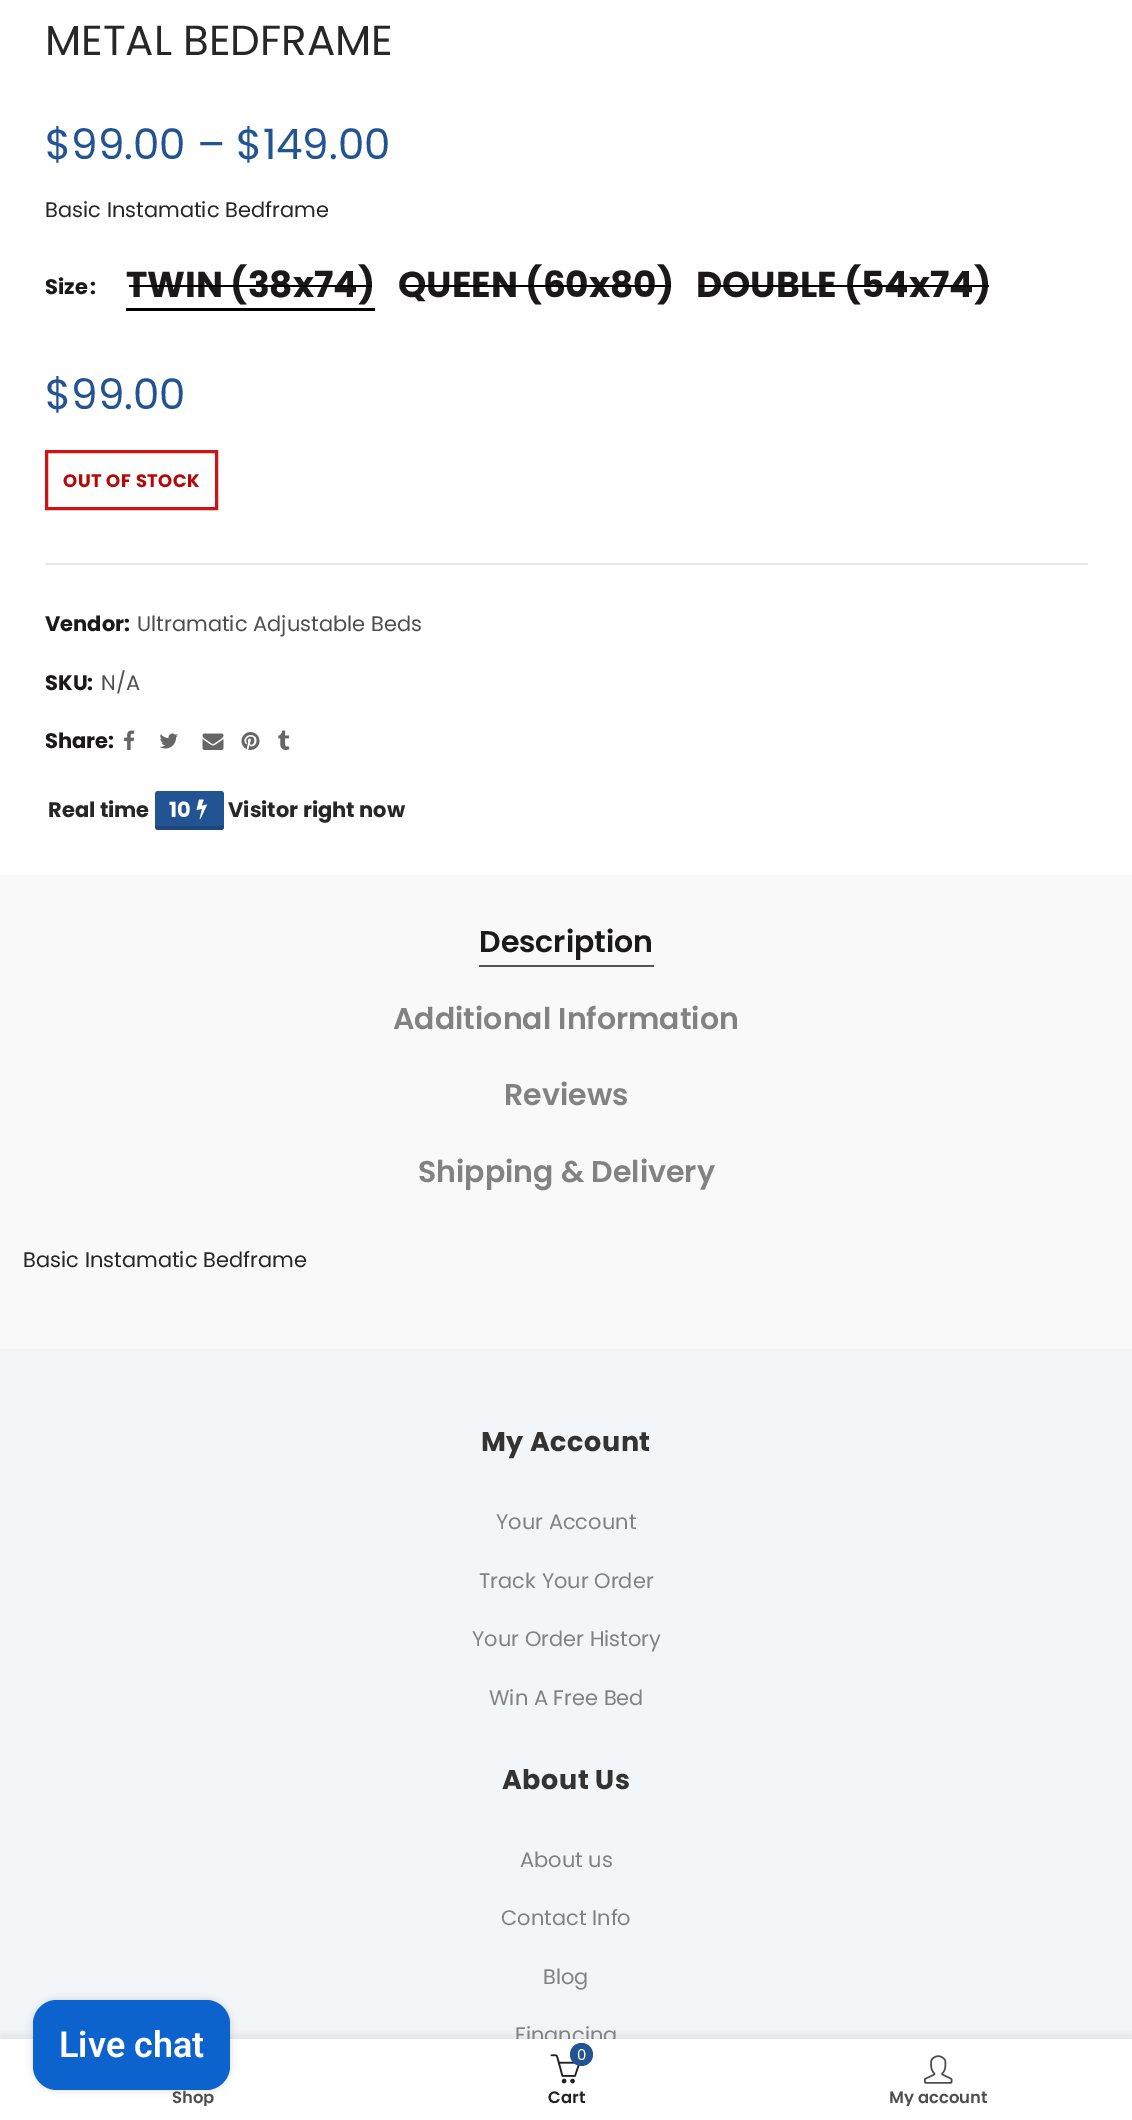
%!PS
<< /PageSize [1132 2120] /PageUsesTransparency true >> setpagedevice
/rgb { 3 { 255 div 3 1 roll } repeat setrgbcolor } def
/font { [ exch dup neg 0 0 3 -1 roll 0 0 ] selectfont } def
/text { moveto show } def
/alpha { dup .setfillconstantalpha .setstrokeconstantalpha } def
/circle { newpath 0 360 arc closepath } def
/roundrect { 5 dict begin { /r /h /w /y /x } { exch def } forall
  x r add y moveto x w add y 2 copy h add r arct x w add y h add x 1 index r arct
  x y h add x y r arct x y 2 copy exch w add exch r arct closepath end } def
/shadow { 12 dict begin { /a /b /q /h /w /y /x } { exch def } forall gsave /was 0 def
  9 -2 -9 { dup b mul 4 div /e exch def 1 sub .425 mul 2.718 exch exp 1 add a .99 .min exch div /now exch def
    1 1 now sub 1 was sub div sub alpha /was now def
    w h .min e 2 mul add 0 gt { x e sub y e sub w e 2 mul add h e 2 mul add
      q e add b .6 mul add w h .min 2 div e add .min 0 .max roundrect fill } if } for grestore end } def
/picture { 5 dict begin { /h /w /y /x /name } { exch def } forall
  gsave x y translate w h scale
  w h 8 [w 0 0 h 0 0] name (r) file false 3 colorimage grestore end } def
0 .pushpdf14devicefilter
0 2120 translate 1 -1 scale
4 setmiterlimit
255 255 255 rgb
0 0 1132 2120 rectfill
0 0 0 rgb
126 308 249 3 rectfill
204 20 20 rgb
3 setlinewidth
46.5 451.5 170 57 rectstroke
232 232 232 rgb
45 563 1043 2 rectfill
(img_01.rgb) 124 730 11 20 picture
(img_02.rgb) 159 733 19 16 picture
(img_03.rgb) 202 733 22 17 picture
(img_04.rgb) 241 732 19 18 picture
(img_05.rgb) 278 730 12 20 picture
34 84 147 rgb
155 791 69 39 3 roundrect fill
0.15 alpha
0 0 0 rgb
158 830 moveto 63 0 rlineto 2 0 3 -1 3 -3 rcurveto 0 -3 rlineto 0 1 -2 2 -4 2 rcurveto -62 0 rlineto -3 -1 rlineto 0 2 0 5 3 5 rcurveto closepath fill
1 alpha
(img_06.rgb) 196 799 11 20 picture
249 249 249 rgb
0 875 1132 474 rectfill
84 84 84 rgb
479 965 175 2 rectfill
243 246 249 rgb
0 1349 1132 690 rectfill
0 0 0 rgb
0 2039 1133 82 0 7 0.12 shadow
/Poppins-Regular 42 font
39 39 39 rgb
(METAL BEDFRAME) 45 55 text
34 84 147 rgb
($99.00 – $149.00) 45 159 text
/Poppins-Regular 21 font
39 39 39 rgb
(Basic Instamatic Bedframe) 45 217 text
/Poppins-Bold 21 font
27 25 25 rgb
(Size) 45 294 text
(:) 90 294 text
/Poppins-Bold 36 font
(TWIN \(38x74\)) 126 297 text
0 0 0 rgb
129 285 243 2 rectfill
27 25 25 rgb
(QUEEN \(60x80\)) 398 297 text
0 0 0 rgb
401 285 270 2 rectfill
27 25 25 rgb
(DOUBLE \(54x74\)) 696 297 text
0 0 0 rgb
699 285 290 2 rectfill
/Poppins-Regular 42 font
34 84 147 rgb
($99.00) 45 409 text
/Poppins-Bold 18 font
181 8 8 rgb
63 487 moveto 0.5 0 (OUT OF STOCK) ashow
/Poppins-Bold 21 font
27 25 25 rgb
(Vendor:) 45 631 text
/Poppins-Regular 21 font
78 78 78 rgb
(Ultramatic Adjustable Beds) 137 631 text
/Poppins-Bold 21 font
27 25 25 rgb
(SKU:) 45 690 text
/Poppins-Regular 21 font
78 78 78 rgb
(N/A) 101 690 text
/Poppins-Bold 21 font
27 25 25 rgb
(Share:) 45 748 text
39 39 39 rgb
(Real time) 48 817 text
255 255 255 rgb
(10) 169 817 text
39 39 39 rgb
(Visitor right now) 228 817 text
/Poppins-SemiBold 30 font
27 25 25 rgb
(Description) 479 952 text
130 130 130 rgb
(Additional Information) 393 1029 text
(Reviews) 504 1105 text
(Shipping & Delivery) 418 1182 text
/Poppins-Regular 21 font
39 39 39 rgb
(Basic Instamatic Bedframe) 23 1267 text
/Poppins-Bold 27 font
51 51 51 rgb
481 1451 moveto 0.5 0 (My Account) ashow
/Poppins-Regular 21 font
130 130 130 rgb
(Your Account) 496 1529 text
(Track Your Order) 479 1588 text
(Your Order History) 472 1646 text
(Win A Free Bed) 489 1705 text
/Poppins-Bold 27 font
51 51 51 rgb
502 1789 moveto 0.5 0 (About Us) ashow
/Poppins-Regular 21 font
130 130 130 rgb
(About us) 520 1867 text
(Contact Info) 501 1925 text
(Blog) 543 1984 text
(Financing) 515 2042 text
255 255 255 rgb
0 2039 1132 81 rectfill
0 0 0 rgb
33 2000 197 90 24 4 0.15 shadow
13 99 205 rgb
33 2000 197 90 24 roundrect fill
/Roboto-SemiBold 36 font
255 255 255 rgb
(Live chat) 59 2057 text
gsave
23 2090 342 16 rectclip
/Poppins-SemiBold 16.5 font
78 78 78 rgb
(Shop) 172 2103 text
grestore
(img_07.rgb) 550 2054 30 30 picture
34 84 147 rgb
581.5 2054.5 11.5 circle fill
/Poppins-Regular 15 font
255 255 255 rgb
(0) 577 2060 text
/Poppins-SemiBold 16.5 font
32 32 32 rgb
(Cart) 548 2103 text
(img_08.rgb) 924 2055 29 29 picture
gsave
768 2090 342 16 rectclip
78 78 78 rgb
(My account) 889 2103 text
grestore
.poppdf14devicefilter showpage
